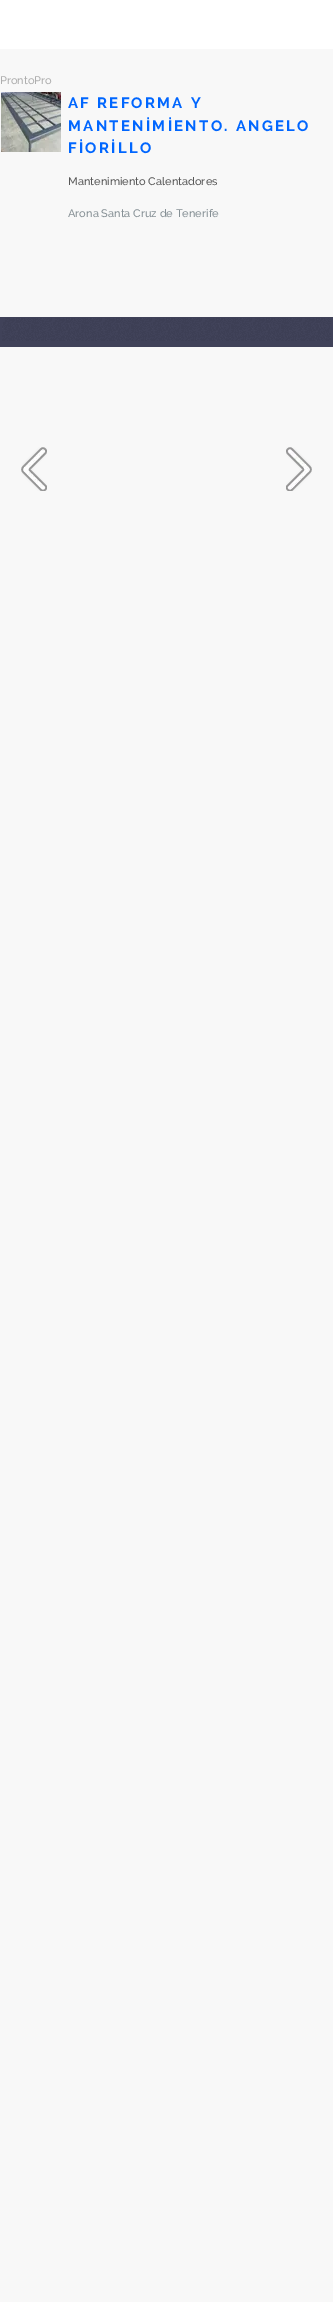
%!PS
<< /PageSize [333 2302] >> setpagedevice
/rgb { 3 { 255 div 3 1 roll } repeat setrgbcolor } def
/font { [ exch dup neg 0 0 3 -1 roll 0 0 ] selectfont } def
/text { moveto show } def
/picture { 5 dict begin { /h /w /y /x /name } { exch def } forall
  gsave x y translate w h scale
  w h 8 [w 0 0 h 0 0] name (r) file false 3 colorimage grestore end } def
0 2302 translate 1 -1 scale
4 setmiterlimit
248 248 248 rgb
0 0 333 2302 rectfill
255 255 255 rgb
0 0 333 49 rectfill
(img_01.rgb) 1 92 60 60 picture
(img_02.rgb) 21 447 26 44 picture
(img_03.rgb) 286 447 26 44 picture
64 66 89 rgb
0 317 333 30 rectfill
(img_04.rgb) 2 318 329 23 picture
/Raleway-Medium 11 font
174 174 174 rgb
(ProntoPro) 0 84 text
/Raleway-Bold 15 font
0 102 255 rgb
68 108 moveto 2.25 0 (AF REFORMA Y) ashow
68 131 moveto 2.25 0 (MANTENİMİENTO. ANGELO) ashow
68 153 moveto 2.25 0 (FİORİLLO) ashow
/Raleway-Medium 11 font
87 87 87 rgb
(Mantenimiento Calentadores) 68 185 text
134 144 149 rgb
(Arona Santa Cruz de Tenerife) 68 217 text
showpage
